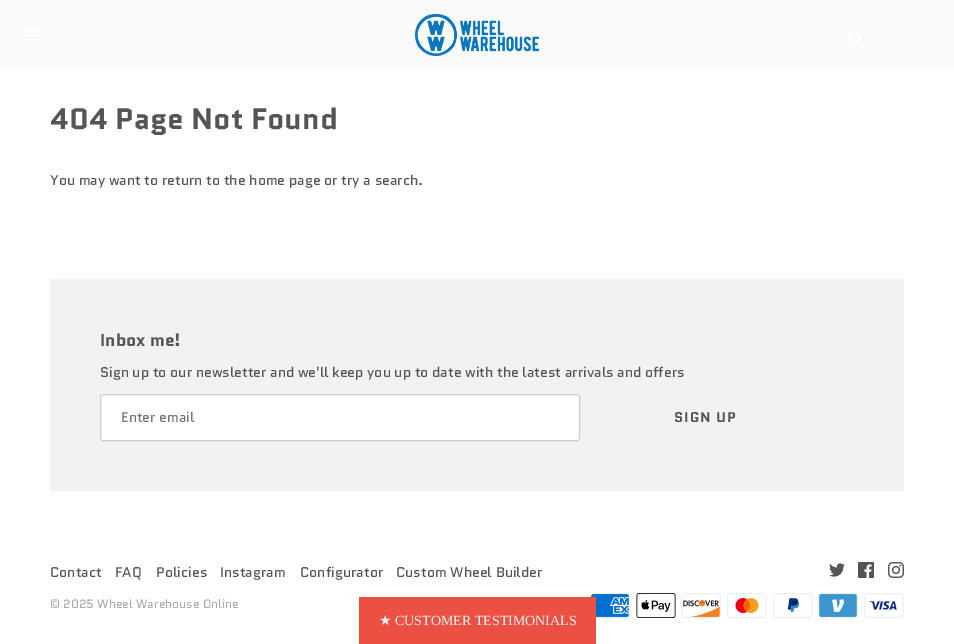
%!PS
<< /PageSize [954 644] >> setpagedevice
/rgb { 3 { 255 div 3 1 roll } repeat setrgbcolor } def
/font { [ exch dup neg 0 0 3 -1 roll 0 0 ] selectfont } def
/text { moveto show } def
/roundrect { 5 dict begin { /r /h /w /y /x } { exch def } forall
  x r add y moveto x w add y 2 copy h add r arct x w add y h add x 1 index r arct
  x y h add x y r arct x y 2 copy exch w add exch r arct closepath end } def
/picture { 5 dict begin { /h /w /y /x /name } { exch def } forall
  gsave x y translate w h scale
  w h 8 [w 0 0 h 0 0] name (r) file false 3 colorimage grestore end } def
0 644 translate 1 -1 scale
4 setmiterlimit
255 255 255 rgb
0 0 954 644 rectfill
250 250 250 rgb
0 0 954 69 rectfill
(img_01.rgb) 23 29 18 12 picture
(img_02.rgb) 415 14 124 42 picture
(img_03.rgb) 848 31 17 17 picture
242 242 242 rgb
50 279 854 212 rectfill
255 255 255 rgb
100.5 394.5 479 46 2.5 roundrect gsave fill grestore
204 204 204 rgb
stroke
(img_04.rgb) 829 563 16 14 picture
(img_05.rgb) 858 562 16 16 picture
(img_06.rgb) 888 562 16 16 picture
(img_07.rgb) 590 593 40 25 picture
(img_08.rgb) 636 593 40 25 picture
(img_09.rgb) 681 593 40 25 picture
(img_10.rgb) 727 593 40 25 picture
(img_11.rgb) 773 593 40 25 picture
(img_12.rgb) 818 593 40 25 picture
(img_13.rgb) 864 593 40 25 picture
235 80 66 rgb
359 597 237 47 rectfill
/Quantico-Bold 29.5 font
85 85 85 rgb
(404 Page Not Found) 50 129 text
/Quantico-Regular 14 font
(You may want to return to the home page or try a search.) 50 185 text
/Quantico-Bold 17.25 font
(Inbox me!) 100 346 text
/Quantico-Regular 14 font
(Sign up to our newsletter and we'll keep you up to date with the latest arrivals and offers) 100 377 text
117 117 117 rgb
(Enter email) 121 422 text
/Quantico-Bold 14 font
85 85 85 rgb
674 422 moveto 1 0 (SIGN UP) ashow
/Quantico-Regular 14 font
(Contact) 50 577 text
(FAQ) 115 577 text
(Policies) 156 577 text
(Instagram) 220 577 text
(Configurator) 300 577 text
(Custom Wheel Builder) 396 577 text
/Quantico-Regular 12 font
170 170 170 rgb
(© 2025 Wheel Warehouse Online) 50 608 text
/DejaVuSans-Regular 14 font
242 242 242 rgb
(★) 379 625 text
/LiberationSerif-Regular 14 font
(CUSTOMER TESTIMONIALS) 395 625 text
showpage
